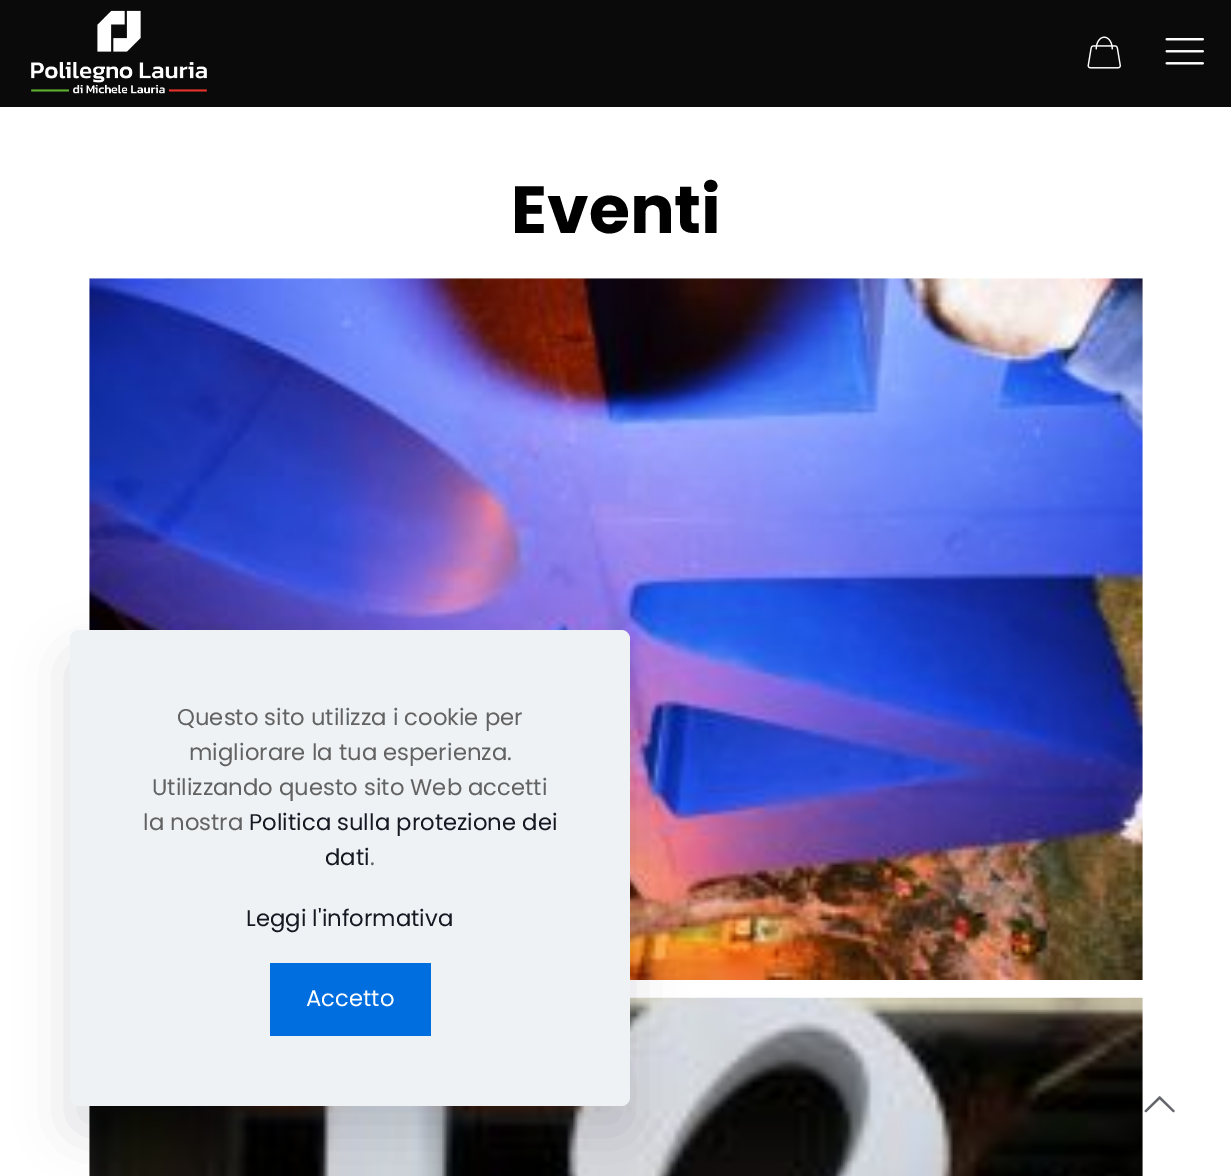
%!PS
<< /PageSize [1231 1176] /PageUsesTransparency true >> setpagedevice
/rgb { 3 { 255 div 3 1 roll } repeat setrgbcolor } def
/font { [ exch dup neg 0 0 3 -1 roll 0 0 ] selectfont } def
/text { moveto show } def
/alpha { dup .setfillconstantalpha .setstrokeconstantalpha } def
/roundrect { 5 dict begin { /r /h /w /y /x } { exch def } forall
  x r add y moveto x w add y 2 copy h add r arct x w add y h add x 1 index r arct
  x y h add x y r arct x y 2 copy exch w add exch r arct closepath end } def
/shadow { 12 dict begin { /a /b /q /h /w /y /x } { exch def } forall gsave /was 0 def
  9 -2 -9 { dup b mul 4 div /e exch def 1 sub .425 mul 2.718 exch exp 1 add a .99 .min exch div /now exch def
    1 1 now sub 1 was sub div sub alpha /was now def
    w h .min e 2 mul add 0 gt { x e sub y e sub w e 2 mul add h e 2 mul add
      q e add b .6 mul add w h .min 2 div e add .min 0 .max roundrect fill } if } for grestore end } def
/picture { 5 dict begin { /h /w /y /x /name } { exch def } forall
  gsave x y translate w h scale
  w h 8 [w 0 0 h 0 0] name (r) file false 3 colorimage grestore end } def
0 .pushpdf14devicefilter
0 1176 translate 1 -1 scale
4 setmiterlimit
255 255 255 rgb
0 0 1231 1176 rectfill
10 10 10 rgb
0 0 1231 107 rectfill
(img_01.rgb) 31 10 176 84 picture
(img_02.rgb) 1165 38 39 27 picture
(img_03.rgb) 1087 36 34 33 picture
(img_04.rgb) 89 278 1054 702 picture
(img_05.rgb) 89 997 1054 179 picture
1 7 39 rgb
70 656 560 476 9 26 0.13 shadow
238 242 245 rgb
70 630 560 476 9 roundrect fill
0 110 223 rgb
270 963 161 73 rectfill
(img_06.rgb) 1144 1096 31 17 picture
/Poppins-Bold 66.5 font
0 0 0 rgb
(Eventi) 511 233 text
/Poppins-Regular 22.75 font
98 98 98 rgb
(Questo sito utilizza i cookie per) 177 725 text
(migliorare la tua esperienza.) 189 760 text
(Utilizzando questo sito Web accetti) 152 795 text
(la nostra) 143 830 text
22 25 34 rgb
(Politica sulla protezione dei) 249 830 text
(dati) 325 865 text
98 98 98 rgb
(.) 370 865 text
22 25 34 rgb
(Leggi l'informativa) 246 926 text
255 255 255 rgb
(Accetto) 306 1006 text
.poppdf14devicefilter showpage
